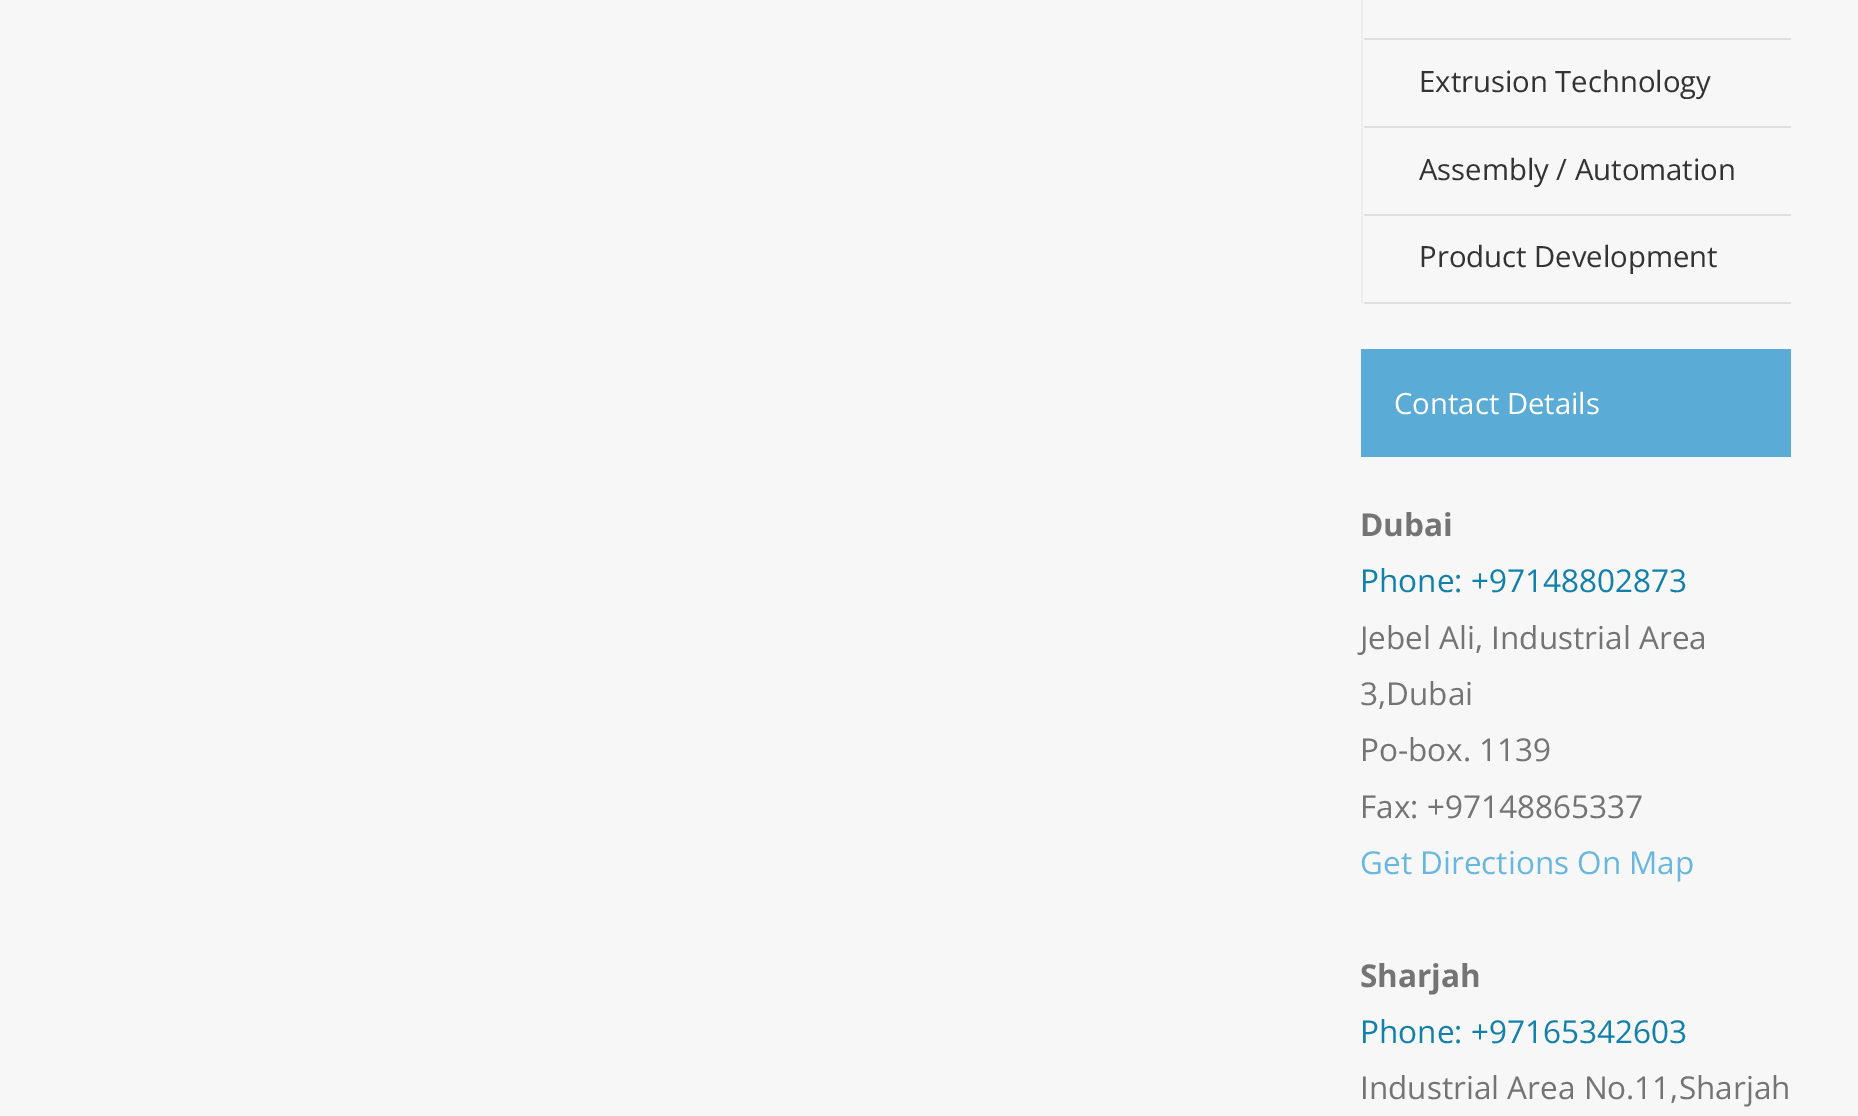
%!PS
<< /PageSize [1858 1116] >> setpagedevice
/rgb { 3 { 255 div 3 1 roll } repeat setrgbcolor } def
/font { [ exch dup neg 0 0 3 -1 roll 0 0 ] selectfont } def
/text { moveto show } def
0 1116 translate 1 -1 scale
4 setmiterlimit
247 247 247 rgb
0 0 1858 1116 rectfill
237 237 237 rgb
1361 0 2 304 rectfill
224 222 222 rgb
1364 38 427 2 rectfill
1364 126 427 2 rectfill
1364 214 427 2 rectfill
1364 302 427 2 rectfill
90 171 214 rgb
1361 349 430 108 rectfill
/OpenSans-Regular 29.25 font
51 51 51 rgb
(Extrusion Technology) 1419 92 text
(Assembly / Automation) 1419 180 text
(Product Development) 1419 267 text
255 255 255 rgb
(Contact Details) 1394 414 text
/OpenSans-Bold 31.5 font
116 116 116 rgb
(Dubai) 1360 536 text
/OpenSans-Regular 31.5 font
17 128 171 rgb
(Phone: +97148802873) 1360 592 text
116 116 116 rgb
(Jebel Ali, Industrial Area) 1360 649 text
(3,Dubai) 1360 705 text
(Po-box. 1139) 1360 761 text
(Fax: +97148865337) 1360 818 text
103 183 225 rgb
(Get Directions On Map) 1360 874 text
/OpenSans-Bold 31.5 font
116 116 116 rgb
(Sharjah) 1360 987 text
/OpenSans-Regular 31.5 font
17 128 171 rgb
(Phone: +97165342603) 1360 1043 text
116 116 116 rgb
(Industrial Area No.11,Sharjah) 1360 1099 text
showpage
